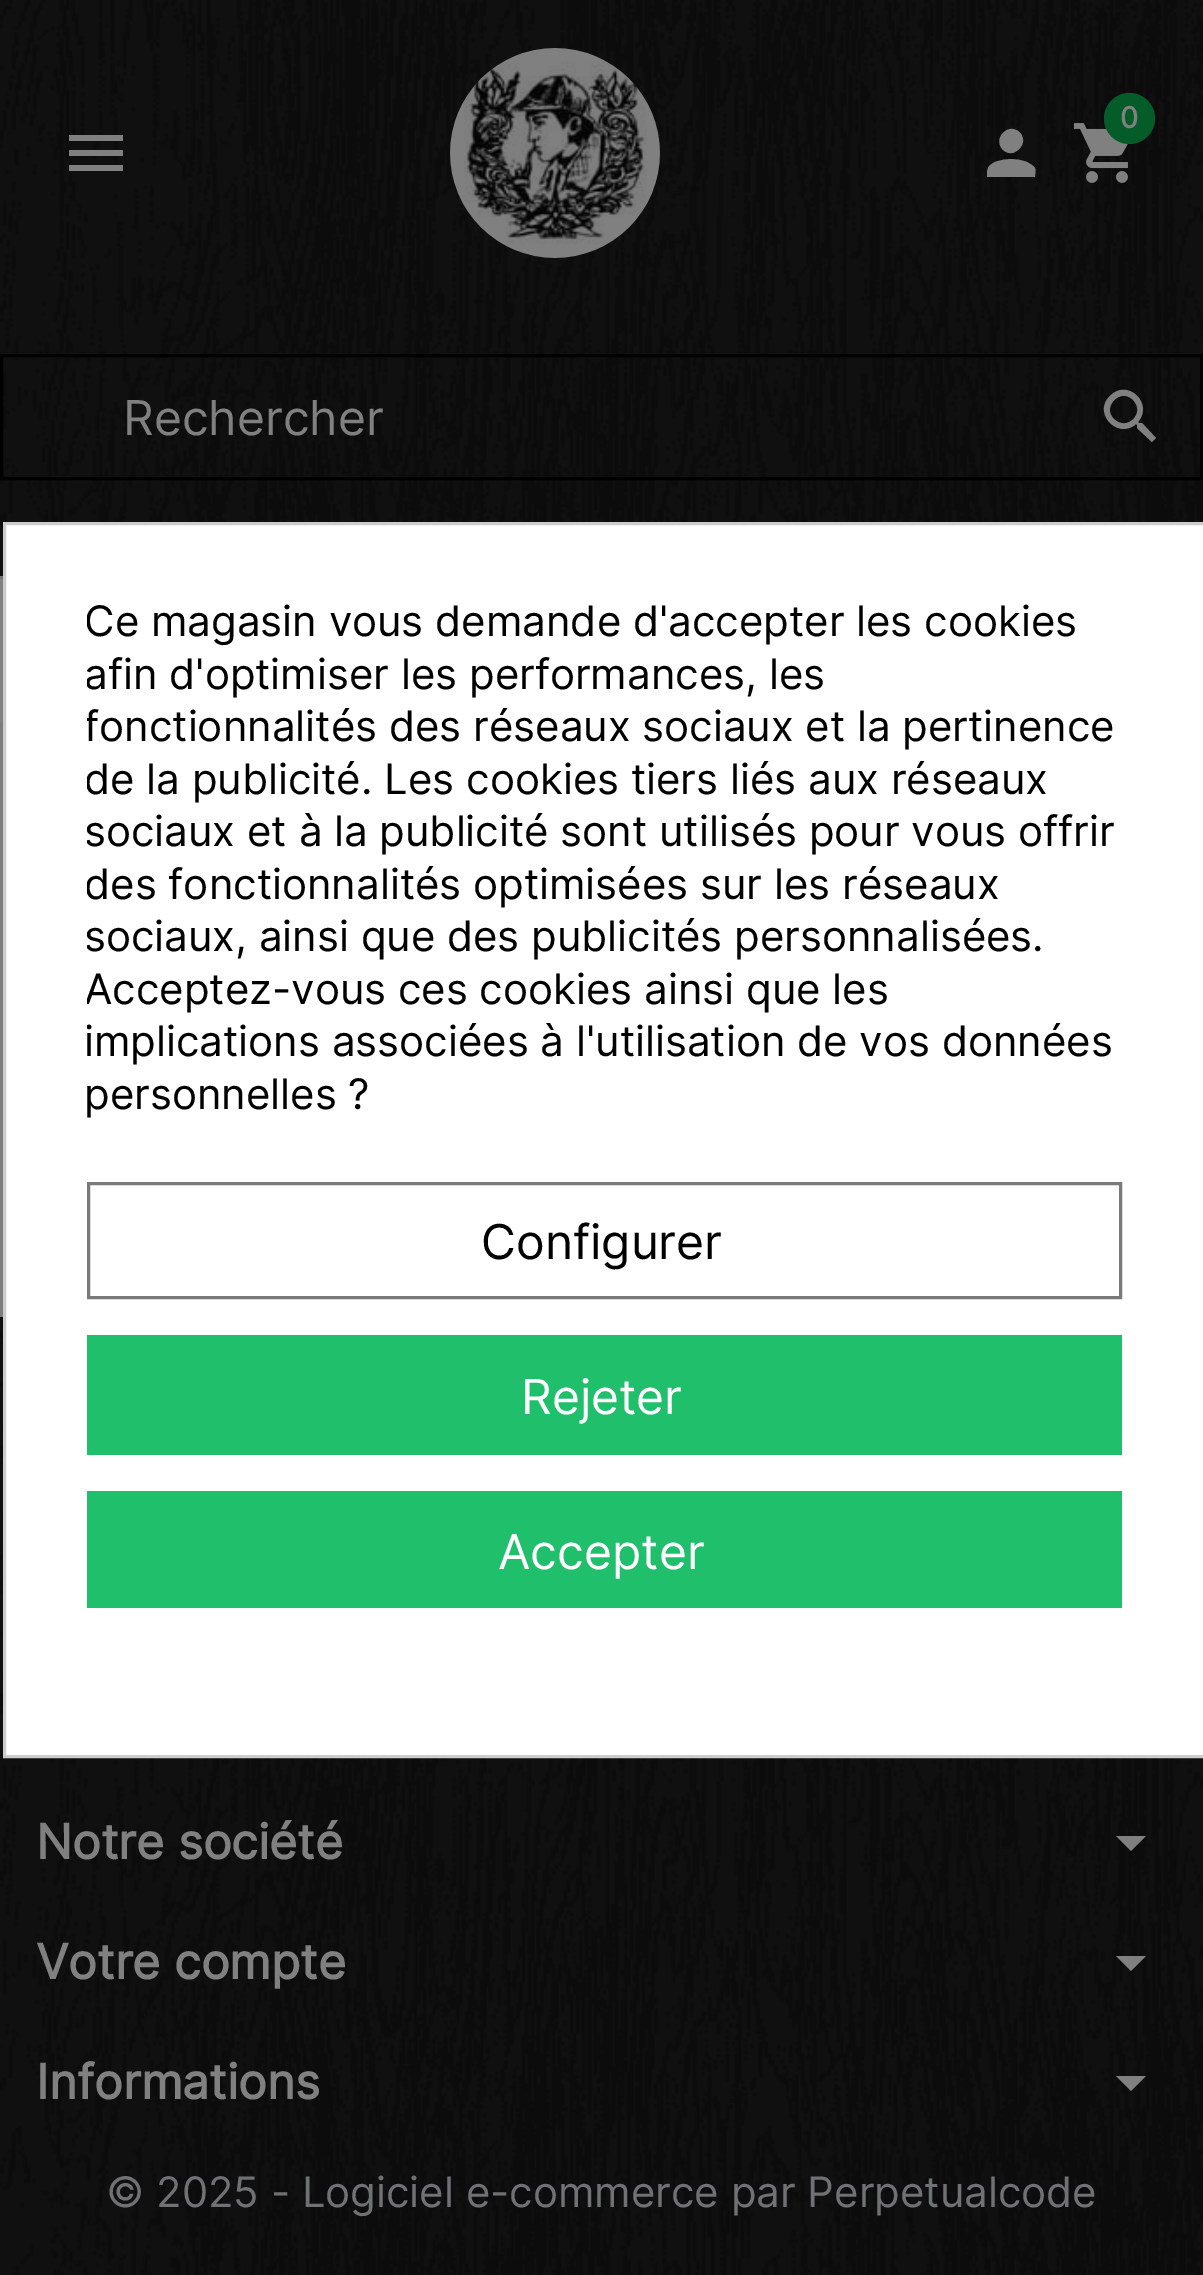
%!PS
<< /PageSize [1203 2275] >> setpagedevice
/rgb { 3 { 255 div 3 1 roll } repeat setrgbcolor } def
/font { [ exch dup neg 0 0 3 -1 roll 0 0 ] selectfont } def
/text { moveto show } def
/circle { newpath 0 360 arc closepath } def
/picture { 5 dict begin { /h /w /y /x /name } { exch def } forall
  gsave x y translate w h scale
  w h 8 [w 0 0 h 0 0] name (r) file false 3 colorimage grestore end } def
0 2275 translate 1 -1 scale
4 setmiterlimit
128 128 128 rgb
0 0 1203 2275 rectfill
(img_01.rgb) 0 0 1203 576 picture
(img_02.rgb) 450 48 210 210 picture
(img_03.rgb) 1073 123 56 60 picture
4 92 40 rgb
1129.5 118.5 25.5 circle fill
128 128 128 rgb
995 162 moveto 11 -4 21 -4 32 0 rcurveto 3 2 6 3 8 6 rcurveto 1 3 0 6 0 9 rcurveto -48 0 rlineto 0 -8 0 -11 8 -15 rcurveto closepath 1019 149 moveto -11 12 -27 -5 -16 -16 rcurveto 11 -12 28 5 16 16 rcurveto closepath fill
69 135 moveto 54 0 rlineto 0 6 rlineto -54 0 rlineto closepath 69 156 moveto 0 -6 rlineto 54 0 rlineto 0 6 rlineto closepath 69 171 moveto 0 -6 rlineto 54 0 rlineto 0 6 rlineto closepath fill
117 118 120 rgb
0 576 3 3 rectfill
0 0 0 rgb
3 setlinewidth
1.5 355.5 1200 123 rectstroke
128 128 128 rgb
1114 419 moveto 13 13 32 -6 19 -19 rcurveto -12 -13 -32 7 -19 19 rcurveto closepath 1142 423 moveto 14 15 rlineto -4 4 rlineto -15 -14 rlineto 0 -3 rlineto -1 -1 rlineto -18 16 -44 -11 -26 -28 rcurveto 17 -18 44 7 28 26 rcurveto 1 1 rlineto closepath fill
(img_05.rgb) 0 1566 1203 709 picture
255 255 255 rgb
4.5 523.5 moveto 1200 0 rlineto 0 1233 rlineto -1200 0 rlineto closepath gsave fill grestore
204 204 204 rgb
stroke
122 122 122 rgb
88.5 1183.5 1032 114 rectstroke
32 191 107 rgb
87 1335 1035 120 rectfill
87 1491 1035 117 rectfill
124 125 125 rgb
0 723 3 594 rectfill
(img_04.rgb) 0 1317 3 249 picture
128 128 128 rgb
1116 1836 moveto 30 0 rlineto -15 15 rlineto closepath fill
1116 1956 moveto 30 0 rlineto -15 15 rlineto closepath fill
1116 2076 moveto 30 0 rlineto -15 15 rlineto closepath fill
/Inter-Bold 29 font
(0) 1120 128 text
/Inter-Regular 48 font
(Rechercher) 123 435 text
gsave
87 597 1035 525 rectclip
/Inter-Regular 42 font
0 0 0 rgb
(Ce magasin vous demande d'accepter les cookies) 84 636 text
(afin d'optimiser les performances, les) 84 689 text
(fonctionnalités des réseaux sociaux et la pertinence) 84 741 text
(de la publicité. Les cookies tiers liés aux réseaux) 84 794 text
(sociaux et à la publicité sont utilisés pour vous offrir) 84 846 text
(des fonctionnalités optimisées sur les réseaux) 84 899 text
(sociaux, ainsi que des publicités personnalisées.) 84 951 text
(Acceptez-vous ces cookies ainsi que les) 84 1004 text
(implications associées à l'utilisation de vos données) 84 1056 text
grestore
/Inter-Regular 42 font
0 0 0 rgb
(personnelles ?) 84 1109 text
/Inter-Regular 48 font
(Configurer) 481 1259 text
255 255 255 rgb
(Rejeter) 521 1414 text
(Accepter) 498 1569 text
/Inter-Bold 48 font
128 128 128 rgb
(Notre société) 36 1859 text
(Votre compte) 36 1979 text
(Informations) 36 2099 text
/Inter-Regular 42 font
111 113 115 rgb
(© 2025 - Logiciel e-commerce par Perpetualcode) 106 2207 text
showpage
